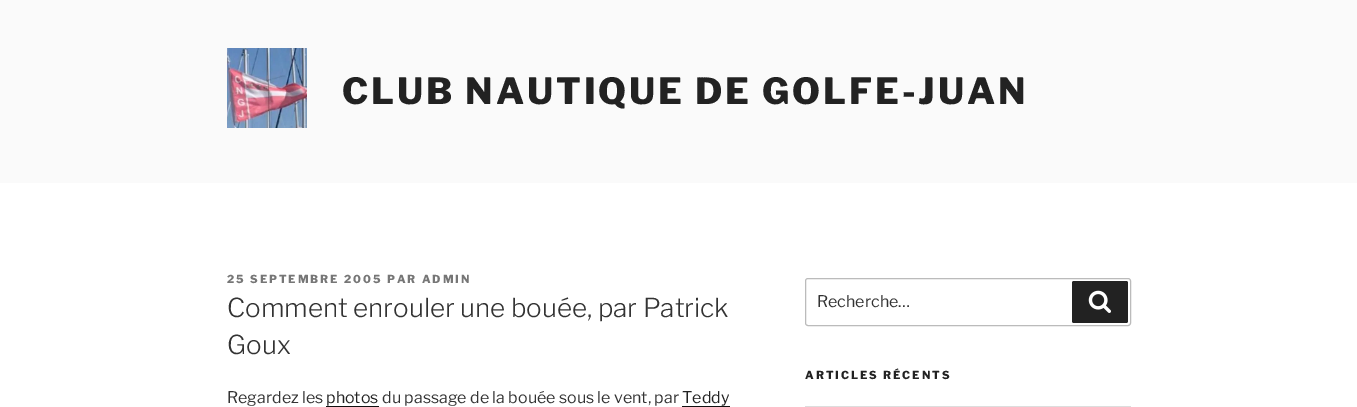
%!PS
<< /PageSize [1357 407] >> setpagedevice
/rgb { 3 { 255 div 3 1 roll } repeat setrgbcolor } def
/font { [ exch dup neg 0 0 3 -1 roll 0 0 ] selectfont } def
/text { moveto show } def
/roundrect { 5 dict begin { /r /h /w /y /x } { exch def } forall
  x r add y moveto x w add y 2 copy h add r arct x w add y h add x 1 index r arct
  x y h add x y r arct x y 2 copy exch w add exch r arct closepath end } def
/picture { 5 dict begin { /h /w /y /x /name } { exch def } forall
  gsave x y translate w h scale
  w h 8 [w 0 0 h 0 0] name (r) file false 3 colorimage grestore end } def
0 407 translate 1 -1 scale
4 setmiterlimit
255 255 255 rgb
0 0 1357 407 rectfill
250 250 250 rgb
0 0 1357 183 rectfill
(img_01.rgb) 227 48 80 80 picture
15 15 15 rgb
326 406 53 1 rectfill
682 406 48 1 rectfill
187 187 187 rgb
805.5 278.5 325 47 2.5 roundrect stroke
34 34 34 rgb
1072 281 56 42 2 roundrect fill
(img_02.rgb) 1088 290 23 23 picture
221 221 221 rgb
805 406 326 1 rectfill
/LibreFranklin-Thin 36 font
34 34 34 rgb
342 104 moveto 2.9 0 (CLUB NAUTIQUE DE GOLFE-JUAN) ashow
/LibreFranklin-Thin 11 font
118 118 118 rgb
227 283 moveto 2 0 (25 SEPTEMBRE 2005 PAR ADMIN) ashow
/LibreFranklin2-Thin 26 font
51 51 51 rgb
(Comment enrouler une bouée, par Patrick) 227 317 text
(Goux) 227 354 text
/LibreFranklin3-Thin 16 font
(Regardez les) 227 403 text
34 34 34 rgb
(photos) 326 403 text
51 51 51 rgb
(du passage de la bouée sous le vent, par) 382 403 text
34 34 34 rgb
(Teddy) 682 403 text
51 51 51 rgb
(Recherche…) 817 307 text
/LibreFranklin-Thin 11 font
34 34 34 rgb
805 379 moveto 2 0 (ARTICLES RÉCENTS) ashow
showpage
